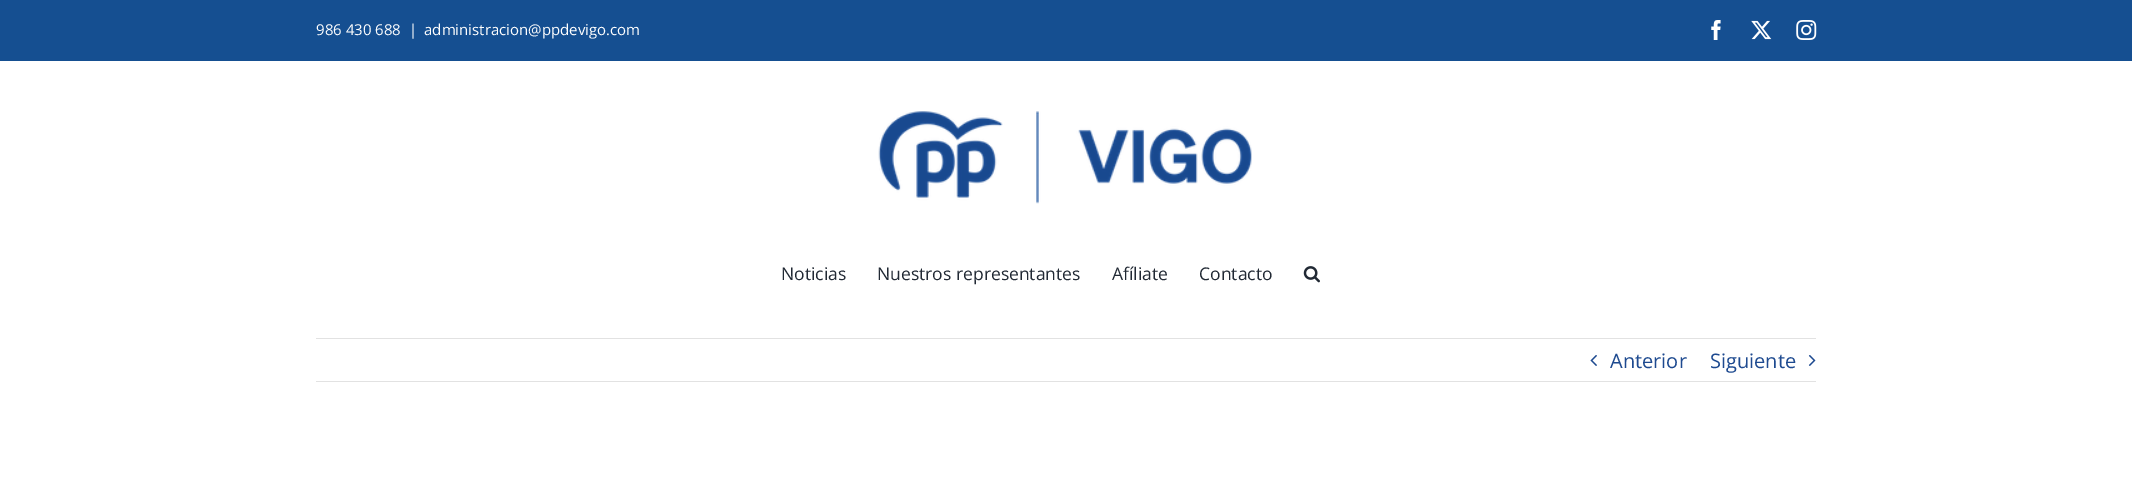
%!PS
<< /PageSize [2132 483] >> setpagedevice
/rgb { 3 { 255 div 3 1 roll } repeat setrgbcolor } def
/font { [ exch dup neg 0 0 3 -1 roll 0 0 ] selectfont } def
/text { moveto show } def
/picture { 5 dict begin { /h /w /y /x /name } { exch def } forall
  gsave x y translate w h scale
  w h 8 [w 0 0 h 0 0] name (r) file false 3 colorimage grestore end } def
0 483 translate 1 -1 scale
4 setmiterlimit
255 255 255 rgb
0 0 2132 483 rectfill
21 79 145 rgb
0 0 2132 61 rectfill
(img_01.rgb) 1711 20 10 20 picture
(img_02.rgb) 1751 20 21 20 picture
(img_03.rgb) 1796 20 21 20 picture
(img_04.rgb) 878 111 374 93 picture
(img_05.rgb) 1303 266 17 17 picture
226 226 226 rgb
316 338 1500 1 rectfill
316 381 1500 1 rectfill
(img_06.rgb) 1590 355 7 11 picture
(img_07.rgb) 1808 355 8 11 picture
/OpenSans-Regular 15 font
255 255 255 rgb
(986 430 688) 316 35 text
(|) 409 35 text
(administracion@ppdevigo.com) 424 35 text
/OpenSans-Regular 17.5 font
33 41 52 rgb
(Noticias) 781 280 text
(Nuestros representantes) 877 280 text
(Afíliate) 1112 280 text
(Contacto) 1199 280 text
/OpenSans-Regular 20 font
30 74 144 rgb
(Anterior) 1610 368 text
(Siguiente) 1710 368 text
showpage
